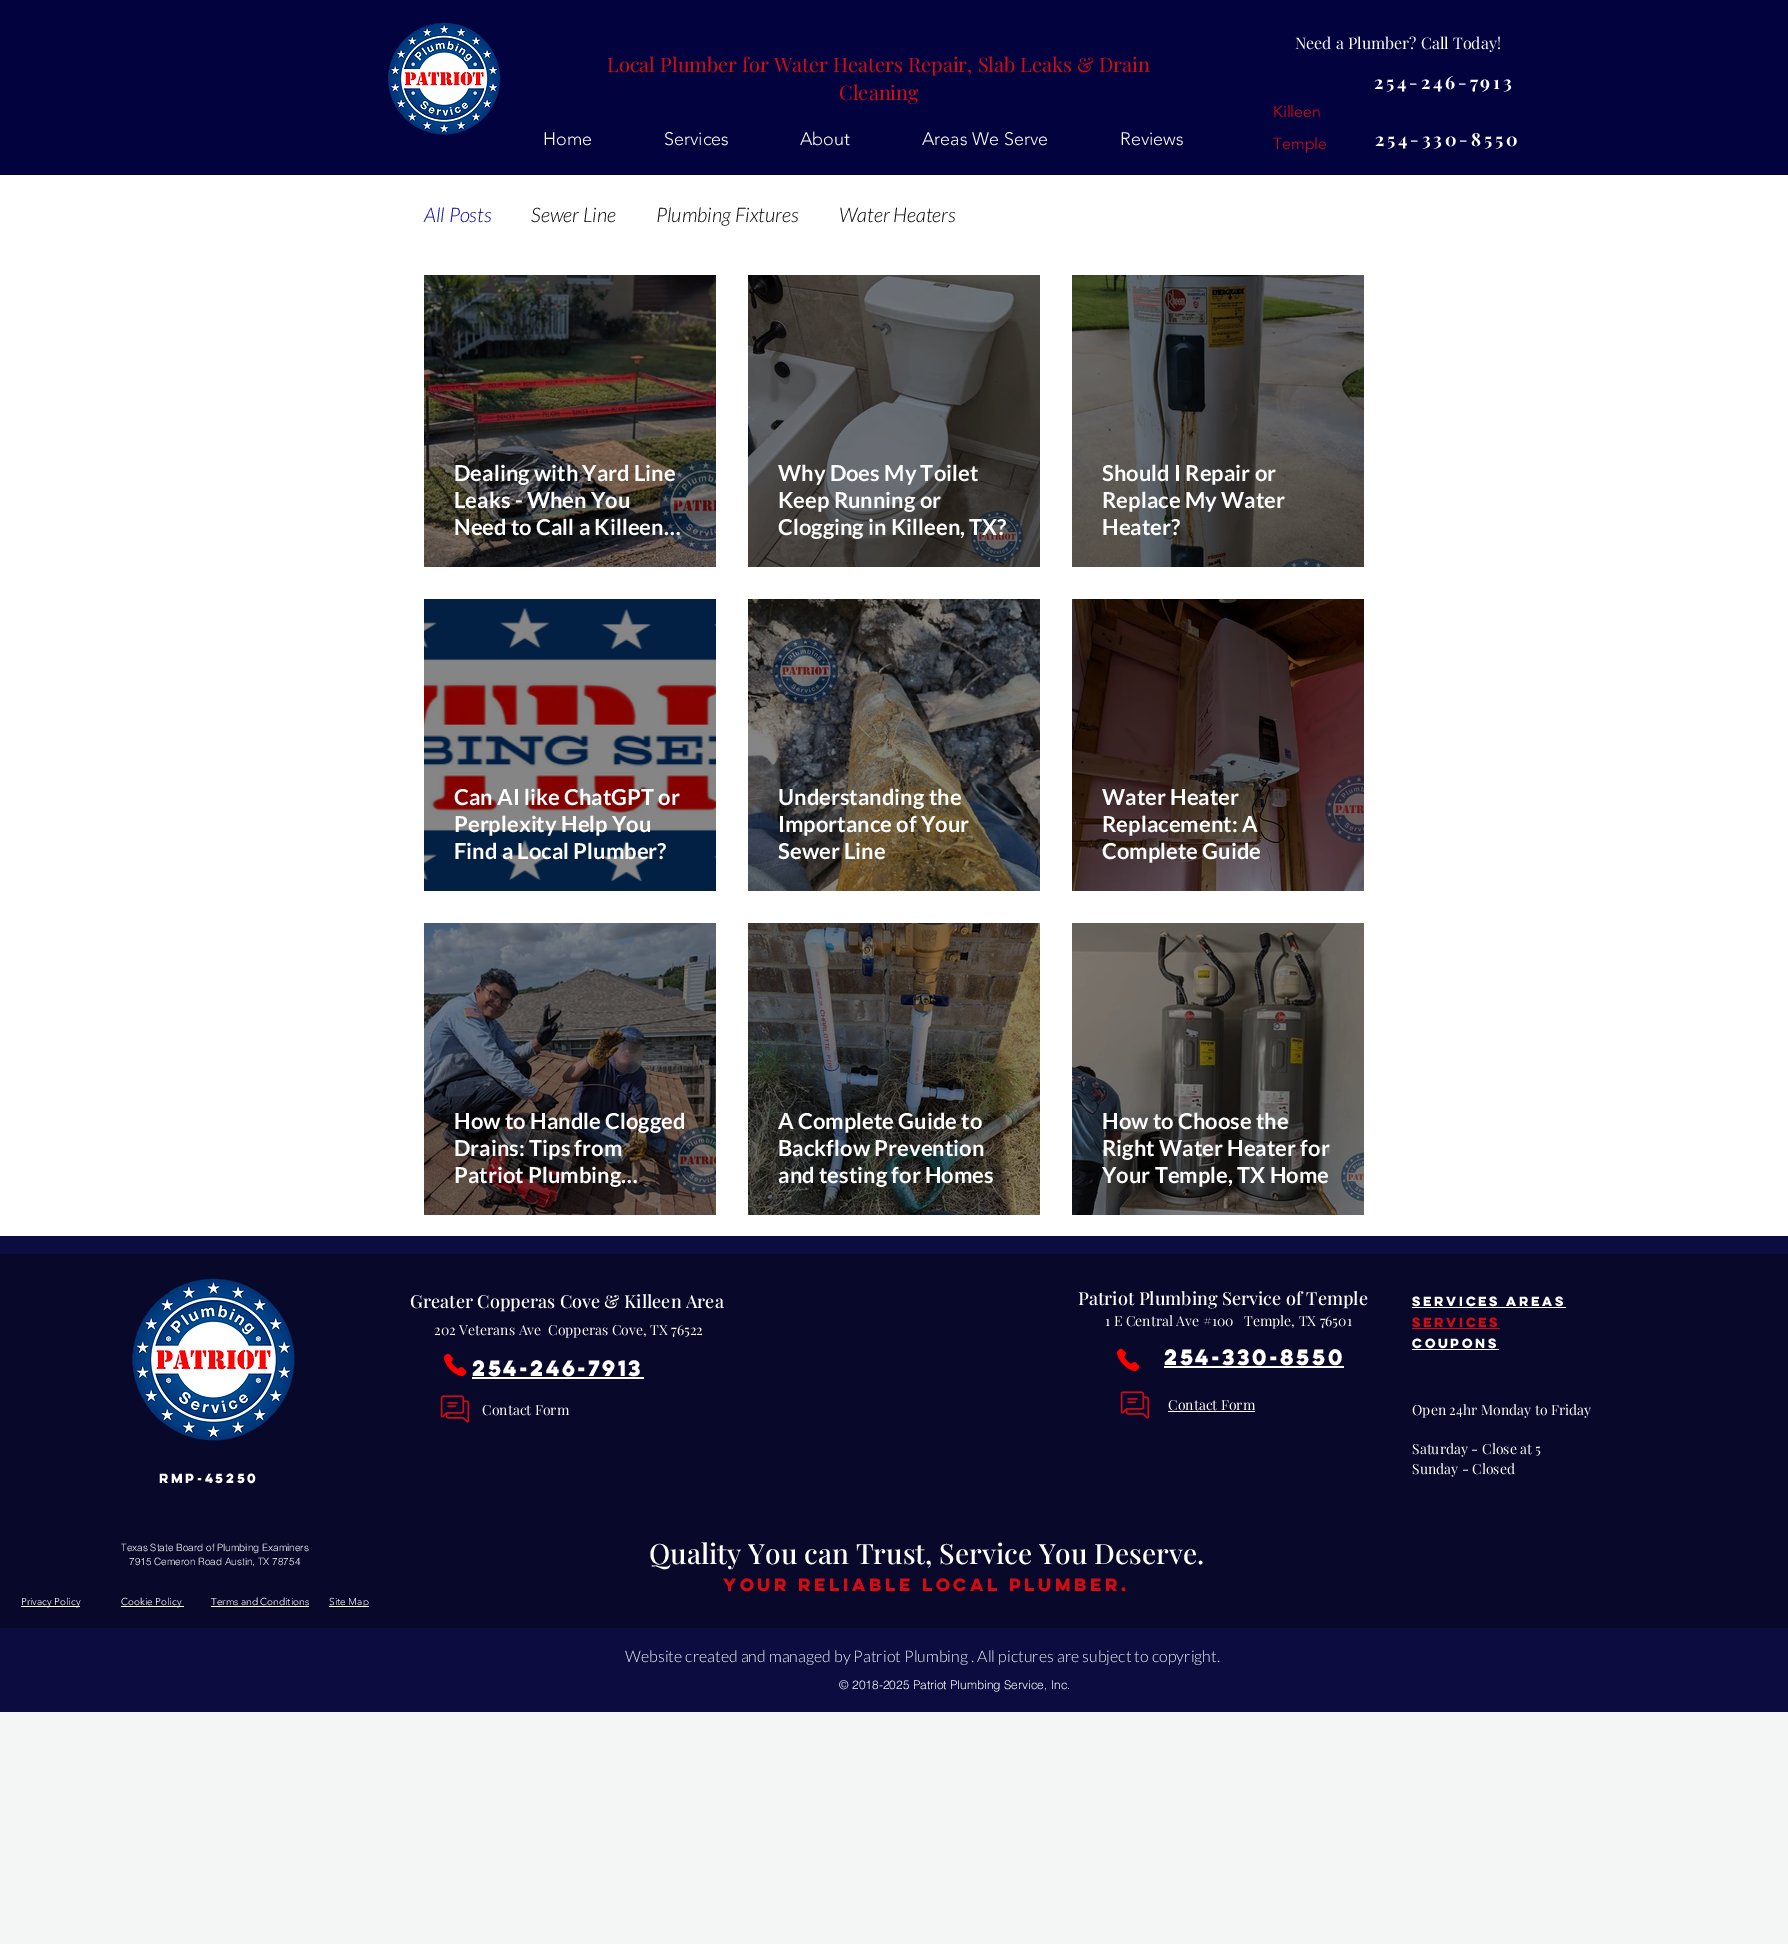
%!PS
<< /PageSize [1788 1944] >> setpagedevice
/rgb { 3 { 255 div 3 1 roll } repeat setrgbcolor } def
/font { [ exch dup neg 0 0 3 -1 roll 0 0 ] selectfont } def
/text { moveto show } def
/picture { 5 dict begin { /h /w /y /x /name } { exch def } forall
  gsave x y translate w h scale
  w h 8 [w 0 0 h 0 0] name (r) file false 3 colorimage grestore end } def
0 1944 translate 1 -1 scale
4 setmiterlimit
243 246 244 rgb
0 0 1788 1944 rectfill
2 2 62 rgb
0 0 1788 175 rectfill
(img_01.rgb) 388 22 113 113 picture
254 255 254 rgb
0 175 1788 1061 rectfill
(img_02.rgb) 424 275 292 292 picture
(img_03.rgb) 748 275 292 292 picture
(img_04.rgb) 1072 275 292 292 picture
(img_05.rgb) 424 599 292 292 picture
(img_06.rgb) 748 599 292 292 picture
(img_07.rgb) 1072 599 292 292 picture
(img_08.rgb) 424 923 292 292 picture
(img_09.rgb) 748 923 292 292 picture
(img_10.rgb) 1072 923 292 292 picture
12 12 64 rgb
0 1236 1788 476 rectfill
8 8 42 rgb
0 1254 1788 374 rectfill
(img_11.rgb) 132 1278 163 163 picture
(img_12.rgb) 443 1353 24 24 picture
255 255 255 rgb
472 1377 172 2 rectfill
(img_13.rgb) 440 1395 30 28 picture
(img_12.rgb) 1116 1348 24 24 picture
1164 1366 180 2 rectfill
(img_13.rgb) 1120 1391 30 28 picture
1168 1411 87 1 rectfill
1412 1307 154 1 rectfill
210 10 20 rgb
1412 1328 88 1 rectfill
255 255 255 rgb
1412 1349 87 1 rectfill
21 1606 59 1 rectfill
121 1606 63 1 rectfill
211 1606 98 1 rectfill
329 1606 40 1 rectfill
/PlayfairDisplay-Regular 16 font
(Need a Plumber? Call Today!) 1295 49 text
/PlayfairDisplay-Regular 20 font
210 10 20 rgb
(Local Plumber for Water Heaters Repair, Slab Leaks & Drain) 607 72 text
(Cleaning) 839 100 text
/PlayfairDisplay-Bold 18 font
255 255 255 rgb
1374 89 moveto 2.75 0 (254-246-7913) ashow
/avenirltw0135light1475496-Light 16 font
210 10 20 rgb
(Killeen) 1273 117 text
/avenirltw0135light1475496-Light 18 font
255 255 255 rgb
(Home) 543 145 text
(Services) 664 145 text
(About) 800 145 text
(Areas We Serve) 922 145 text
(Reviews) 1120 145 text
/avenirltw0135light1475496-Light 16 font
210 10 20 rgb
(Temple) 1273 149 text
/PlayfairDisplay-Bold 18 font
255 255 255 rgb
1375 146 moveto 2.75 0 (254-330-8550) ashow
/Lato-LightItalic 20 font
0 0 161 rgb
(All Posts) 424 222 text
0 0 0 rgb
(Sewer Line) 531 222 text
(Plumbing Fixtures) 656 222 text
(Water Heaters) 839 222 text
/Lato-Bold 22 font
255 255 255 rgb
(Dealing with Yard Line) 454 481 text
(Leaks - When You) 454 508 text
(Need to Call a Killeen…) 454 535 text
(Why Does My Toilet) 778 481 text
(Keep Running or) 778 508 text
(Clogging in Killeen, TX?) 778 535 text
(Should I Repair or) 1102 481 text
(Replace My Water) 1102 508 text
(Heater?) 1102 535 text
(Can AI like ChatGPT or) 454 805 text
(Perplexity Help You) 454 832 text
(Find a Local Plumber?) 454 859 text
(Understanding the) 778 805 text
(Importance of Your) 778 832 text
(Sewer Line) 778 859 text
(Water Heater) 1102 805 text
(Replacement: A) 1102 832 text
(Complete Guide) 1102 859 text
(How to Handle Clogged) 454 1129 text
(Drains: Tips from) 454 1156 text
(Patriot Plumbing…) 454 1183 text
(A Complete Guide to) 778 1129 text
(Backflow Prevention) 778 1156 text
(and testing for Homes) 778 1183 text
(How to Choose the) 1102 1129 text
(Right Water Heater for) 1102 1156 text
(Your Temple, TX Home) 1102 1183 text
/PlayfairDisplay-Medium 18 font
(Greater Copperas Cove & Killeen Area) 410 1308 text
/PlayfairDisplay-Regular 14 font
(202 Veterans Ave) 434 1335 text
(Copperas Cove, TX 76522) 548 1335 text
/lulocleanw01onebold-Bold 20 font
472 1376 moveto -2 0 (254-246-7913) ashow
/PlayfairDisplay-Regular 14 font
(Contact Form) 482 1415 text
/PlayfairDisplay-Medium 18 font
(Patriot Plumbing Service of Temple) 1078 1305 text
/PlayfairDisplay-Regular 14 font
(1 E Central Ave #100   Temple, TX 76501) 1105 1326 text
/lulocleanw01onebold-Bold 20 font
1164 1365 moveto -2 0 (254-330-8550) ashow
/PlayfairDisplay-Regular 14 font
(Contact Form) 1168 1410 text
/lulocleanw01onebold-Bold 12 font
(Services Areas) 1412 1306 text
210 10 20 rgb
(Services) 1412 1327 text
255 255 255 rgb
(Coupons) 1412 1348 text
/PlayfairDisplay-Regular 14 font
(Open 24hr Monday to Friday) 1412 1415 text
(Saturday - Close at 5) 1412 1454 text
(Sunday - Closed) 1412 1474 text
/lulocleanw01onebold-Bold 12 font
(RMP-45250) 159 1483 text
/helvetica-Light 10 font
(Texas State Board of Plumbing Examiners) 121 1551 text
(7915 Cemeron Road Austin, TX 78754) 129 1565 text
/PlayfairDisplay-Medium 28 font
(Quality You can Trust, Service You Deserve.) 649 1564 text
/lulocleanw01onebold-Bold 16 font
210 10 20 rgb
(Your reliable local plumber.) 723 1591 text
/avenirltw0135light1475496-Light 10 font
255 255 255 rgb
(Privacy Policy) 21 1605 text
(Cookie Policy) 121 1605 text
(Terms and Conditions) 211 1605 text
(Site Map) 329 1605 text
/Lato-Light 16 font
243 246 244 rgb
(Website created and managed by Patriot Plumbing . All pictures are subject to copyright.) 625 1662 text
/helvetica-Light 12 font
255 255 255 rgb
(© 2018-2025 Patriot Plumbing Service, Inc.) 839 1689 text
showpage
